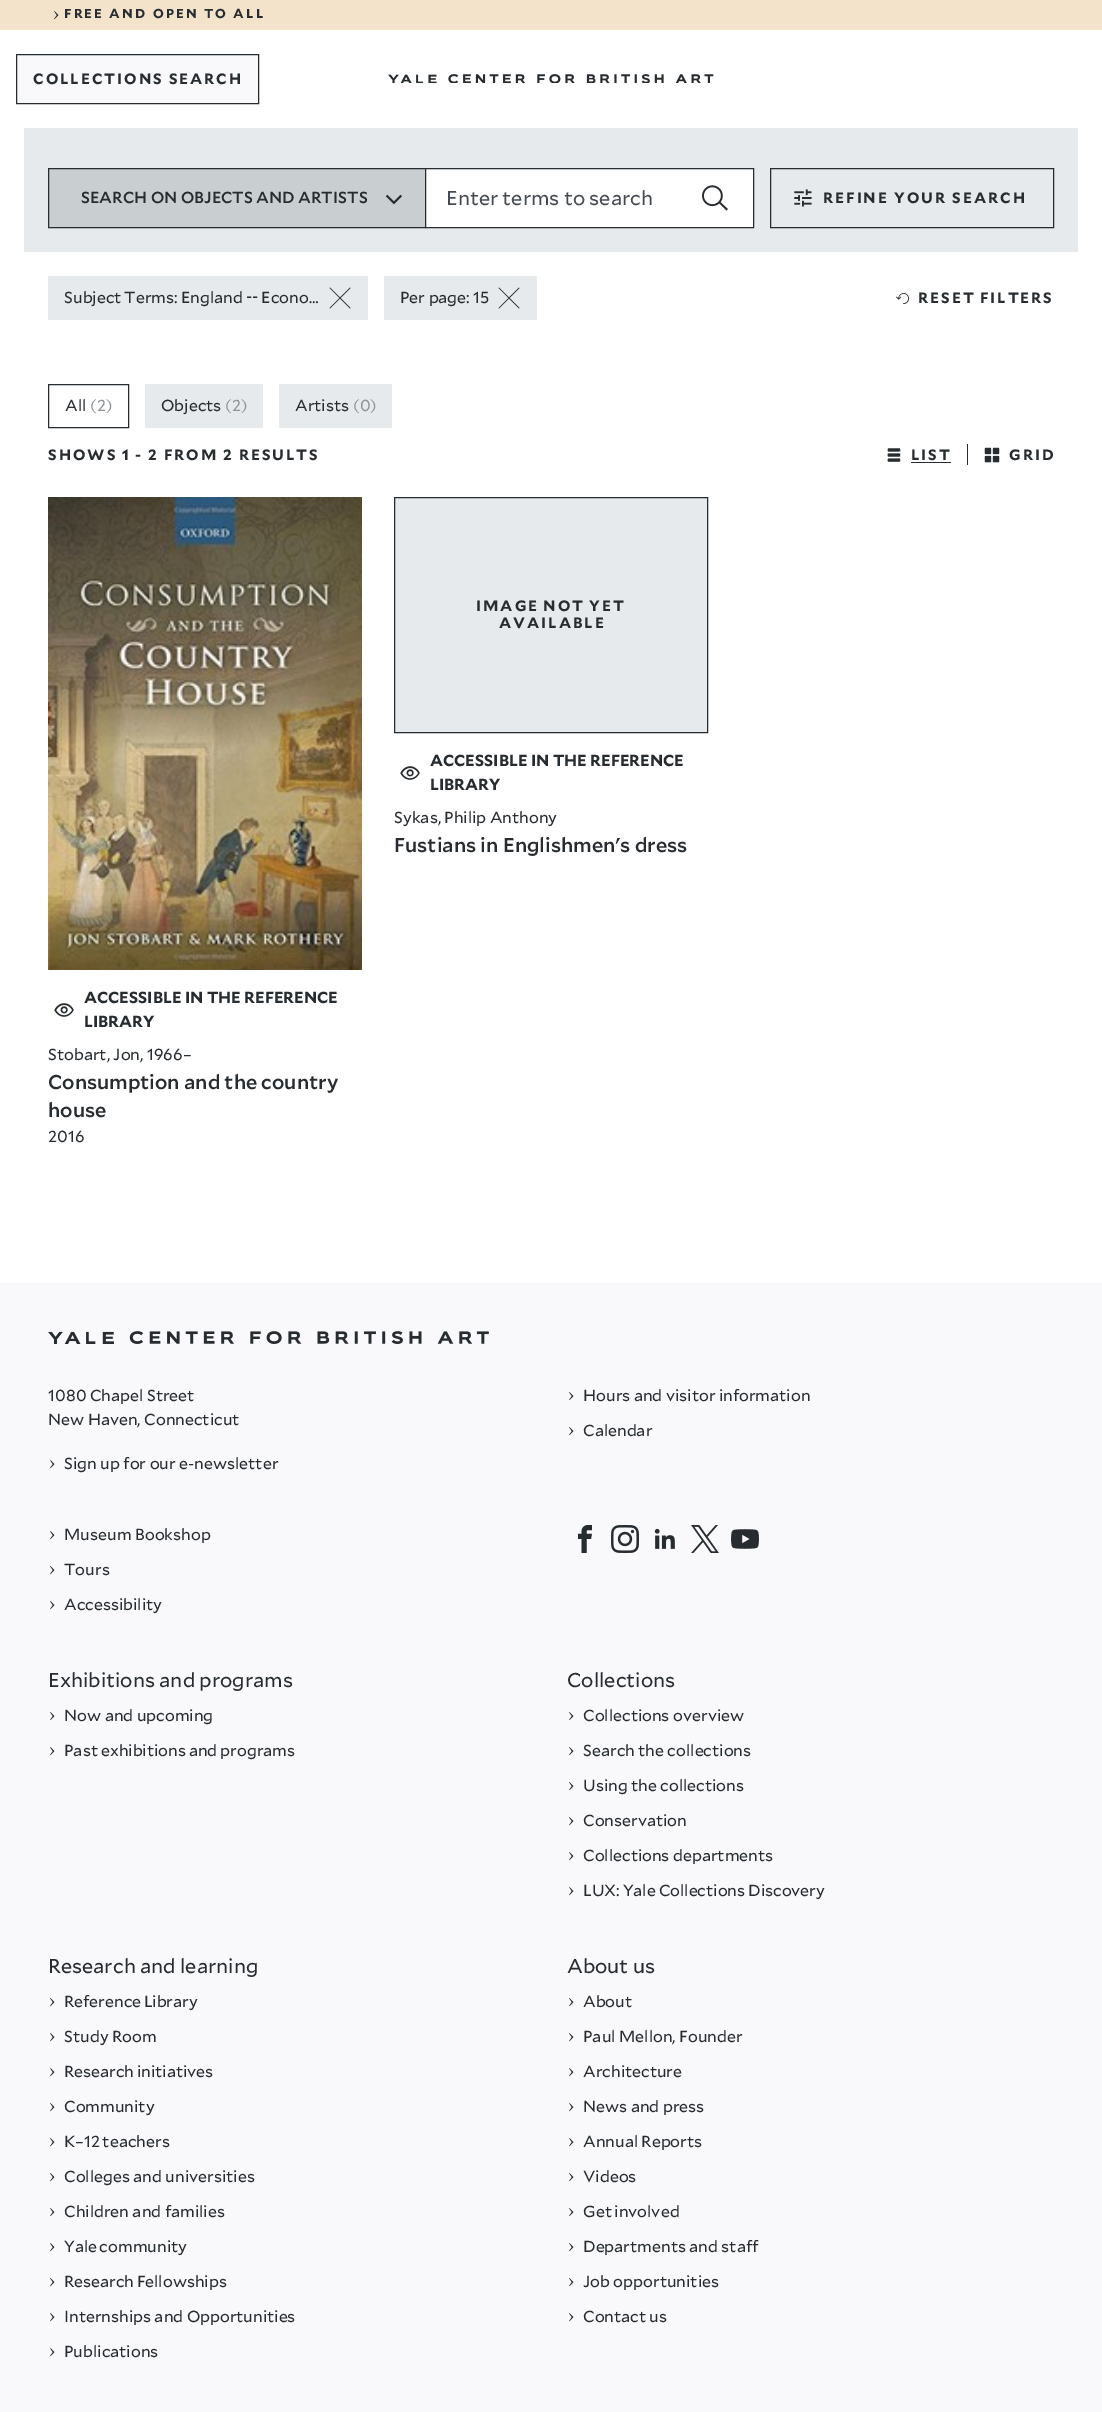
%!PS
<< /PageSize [1102 2412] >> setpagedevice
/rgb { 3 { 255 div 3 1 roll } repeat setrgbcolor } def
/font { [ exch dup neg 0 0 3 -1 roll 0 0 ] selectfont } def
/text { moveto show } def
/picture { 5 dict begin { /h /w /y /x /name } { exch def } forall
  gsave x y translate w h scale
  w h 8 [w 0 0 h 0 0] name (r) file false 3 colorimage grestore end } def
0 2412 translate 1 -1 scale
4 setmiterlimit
255 255 255 rgb
0 0 1102 2412 rectfill
244 227 203 rgb
0 0 1102 30 rectfill
(img_01.rgb) 54 11 5 9 picture
249 249 252 rgb
16.5 54.5 moveto 242 0 rlineto 0 49 rlineto -242 0 rlineto closepath gsave fill grestore
39 44 48 rgb
stroke
(img_02.rgb) 388 74 326 9 picture
231 234 236 rgb
24 128 1054 124 rectfill
201 206 209 rgb
48.5 168.5 moveto 377 0 rlineto 0 59 rlineto -377 0 rlineto closepath gsave fill grestore
39 44 48 rgb
stroke
(img_03.rgb) 385 194 17 11 picture
255 255 255 rgb
425.5 168.5 moveto 328 0 rlineto 0 59 rlineto -328 0 rlineto closepath gsave fill grestore
39 44 48 rgb
stroke
(img_04.rgb) 702 185 26 26 picture
770.5 168.5 283 59 rectstroke
(img_05.rgb) 794 189 18 18 picture
231 234 236 rgb
48 276 320 44 rectfill
(img_06.rgb) 329 287 22 22 picture
384 276 153 44 rectfill
(img_06.rgb) 498 287 22 22 picture
(img_07.rgb) 896 293 13 11 picture
39 44 48 rgb
48.5 384.5 80 43 rectstroke
231 234 236 rgb
145 384 118 44 rectfill
279 384 113 44 rectfill
(img_08.rgb) 887 448 14 14 picture
39 44 48 rgb
911 462 40 1 rectfill
967 444 1 21 rectfill
(img_09.rgb) 984 447 16 16 picture
231 234 236 rgb
394.5 497.5 moveto 313 0 rlineto 0 235 rlineto -313 0 rlineto closepath gsave fill grestore
39 44 48 rgb
stroke
(img_10.rgb) 400 766 20 14 picture
(img_11.rgb) 48 497 314 473 picture
(img_10.rgb) 54 1003 20 14 picture
249 249 252 rgb
0 1283 1102 1129 rectfill
(img_12.rgb) 48 1331 441 13 picture
(img_13.rgb) 50 1460 5 9 picture
(img_13.rgb) 569 1392 5 9 picture
(img_13.rgb) 569 1427 5 9 picture
(img_13.rgb) 50 1531 5 9 picture
(img_13.rgb) 50 1566 5 9 picture
(img_13.rgb) 50 1601 5 9 picture
(img_14.rgb) 578 1525 14 28 picture
(img_15.rgb) 611 1525 28 28 picture
(img_16.rgb) 654 1528 21 21 picture
(img_17.rgb) 691 1525 28 28 picture
(img_18.rgb) 731 1529 28 20 picture
(img_13.rgb) 50 1712 5 9 picture
(img_13.rgb) 50 1747 5 9 picture
(img_13.rgb) 569 1712 5 9 picture
(img_13.rgb) 569 1747 5 9 picture
(img_13.rgb) 569 1782 5 9 picture
(img_13.rgb) 569 1817 5 9 picture
(img_13.rgb) 569 1852 5 9 picture
(img_13.rgb) 569 1887 5 9 picture
(img_13.rgb) 50 1998 5 9 picture
(img_13.rgb) 50 2033 5 9 picture
(img_13.rgb) 50 2068 5 9 picture
(img_13.rgb) 50 2103 5 9 picture
(img_13.rgb) 50 2138 5 9 picture
(img_13.rgb) 50 2173 5 9 picture
(img_13.rgb) 50 2208 5 9 picture
(img_13.rgb) 50 2243 5 9 picture
(img_13.rgb) 50 2278 5 9 picture
(img_13.rgb) 50 2313 5 9 picture
(img_13.rgb) 50 2348 5 9 picture
(img_13.rgb) 569 1998 5 9 picture
(img_13.rgb) 569 2033 5 9 picture
(img_13.rgb) 569 2068 5 9 picture
(img_13.rgb) 569 2103 5 9 picture
(img_13.rgb) 569 2138 5 9 picture
(img_13.rgb) 569 2173 5 9 picture
(img_13.rgb) 569 2208 5 9 picture
(img_13.rgb) 569 2243 5 9 picture
(img_13.rgb) 569 2278 5 9 picture
(img_13.rgb) 569 2313 5 9 picture
/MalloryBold-Bold 13 font
39 44 48 rgb
64 18 moveto 2.2 0 (FREE AND OPEN TO ALL) ashow
/MalloryBold-Bold 15 font
33 84 moveto 2 0 (COLLECTIONS SEARCH) ashow
/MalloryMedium-Medium 16 font
(SEARCH ON OBJECTS AND ARTISTS) 81 203 text
/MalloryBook-Regular 20 font
69 75 82 rgb
(Enter terms to search) 446 205 text
/MalloryBold-Bold 15 font
39 44 48 rgb
823 203 moveto 2 0 (REFINE YOUR SEARCH) ashow
/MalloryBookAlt-Regular 16 font
64 303 moveto -0.5 0 32 (Subject Terms: England -- Econo…) widthshow
/MalloryBook-Regular 16 font
(Per page: 15) 400 303 text
/MalloryBold-Bold 15 font
918 303 moveto -1 0 32 2 0 (RESET FILTERS) awidthshow
/MalloryBook-Regular 16 font
(All) 65 411 text
142 147 151 rgb
(\(2\)) 90 411 text
39 44 48 rgb
(Objects) 161 411 text
142 147 151 rgb
(\(2\)) 225 411 text
39 44 48 rgb
(Artists) 295 411 text
142 147 151 rgb
(\(0\)) 353 411 text
/MalloryBold-Bold 15 font
39 44 48 rgb
48 460 moveto -0.5 0 32 2 0 (SHOWS 1 - 2 FROM 2 RESULTS) awidthshow
911 460 moveto 2 0 (LIST) ashow
1009 460 moveto 2 0 (GRID) ashow
476 611 moveto -1 0 32 2 0 (IMAGE NOT YET) awidthshow
499 628 moveto 2 0 (AVAILABLE) ashow
/MalloryBold-Bold 16 font
(ACCESSIBLE IN THE REFERENCE) 430 766 text
(LIBRARY) 430 790 text
/MalloryBook-Regular 16 font
(Sykas, Philip Anthony) 394 823 text
/MalloryMedium-Medium 20 font
(Fustians in Englishmen's dress) 394 852 text
/MalloryBold-Bold 16 font
(ACCESSIBLE IN THE REFERENCE) 84 1003 text
(LIBRARY) 84 1027 text
/MalloryBook-Regular 16 font
(Stobart, Jon, 1966–) 48 1060 text
/MalloryMedium-Medium 20 font
(Consumption and the country) 48 1089 text
(house) 48 1117 text
/MalloryBook-Regular 16 font
(2016) 48 1142 text
(1080 Chapel Street) 48 1401 text
(New Haven, Connecticut) 48 1425 text
(Sign up for our e-newsletter) 64 1469 text
(Hours and visitor information) 583 1401 text
(Calendar) 583 1436 text
(Museum Bookshop) 64 1540 text
(Tours) 64 1575 text
(Accessibility) 64 1610 text
/MalloryBook-Regular 20 font
(Exhibitions and programs) 48 1687 text
/MalloryBook-Regular 16 font
(Now and upcoming) 64 1721 text
64 1756 moveto -0.5 0 32 (Past exhibitions and programs) widthshow
/MalloryBook-Regular 20 font
(Collections) 567 1687 text
/MalloryBook-Regular 16 font
(Collections overview) 583 1721 text
(Search the collections) 583 1756 text
(Using the collections) 583 1791 text
(Conservation) 583 1826 text
(Collections departments) 583 1861 text
583 1896 moveto -0.5 0 32 (LUX: Yale Collections Discovery) widthshow
/MalloryBook-Regular 20 font
(Research and learning) 48 1973 text
/MalloryBook-Regular 16 font
64 2007 moveto -1 0 32 (Reference Library) widthshow
(Study Room) 64 2042 text
64 2077 moveto -0.5 0 32 (Research initiatives) widthshow
(Community) 64 2112 text
64 2147 moveto -1 0 32 (K–12 teachers) widthshow
(Colleges and universities) 64 2182 text
(Children and families) 64 2217 text
64 2252 moveto -1 0 32 (Yale community) widthshow
64 2287 moveto -1 0 32 (Research Fellowships) widthshow
(Internships and Opportunities) 64 2322 text
(Publications) 64 2357 text
/MalloryBook-Regular 20 font
(About us) 567 1973 text
/MalloryBook-Regular 16 font
(About) 583 2007 text
(Paul Mellon, Founder) 583 2042 text
(Architecture) 583 2077 text
(News and press) 583 2112 text
(Annual Reports) 583 2147 text
(Videos) 583 2182 text
583 2217 moveto -1 0 32 (Get involved) widthshow
(Departments and staff) 583 2252 text
(Job opportunities) 583 2287 text
(Contact us) 583 2322 text
showpage
